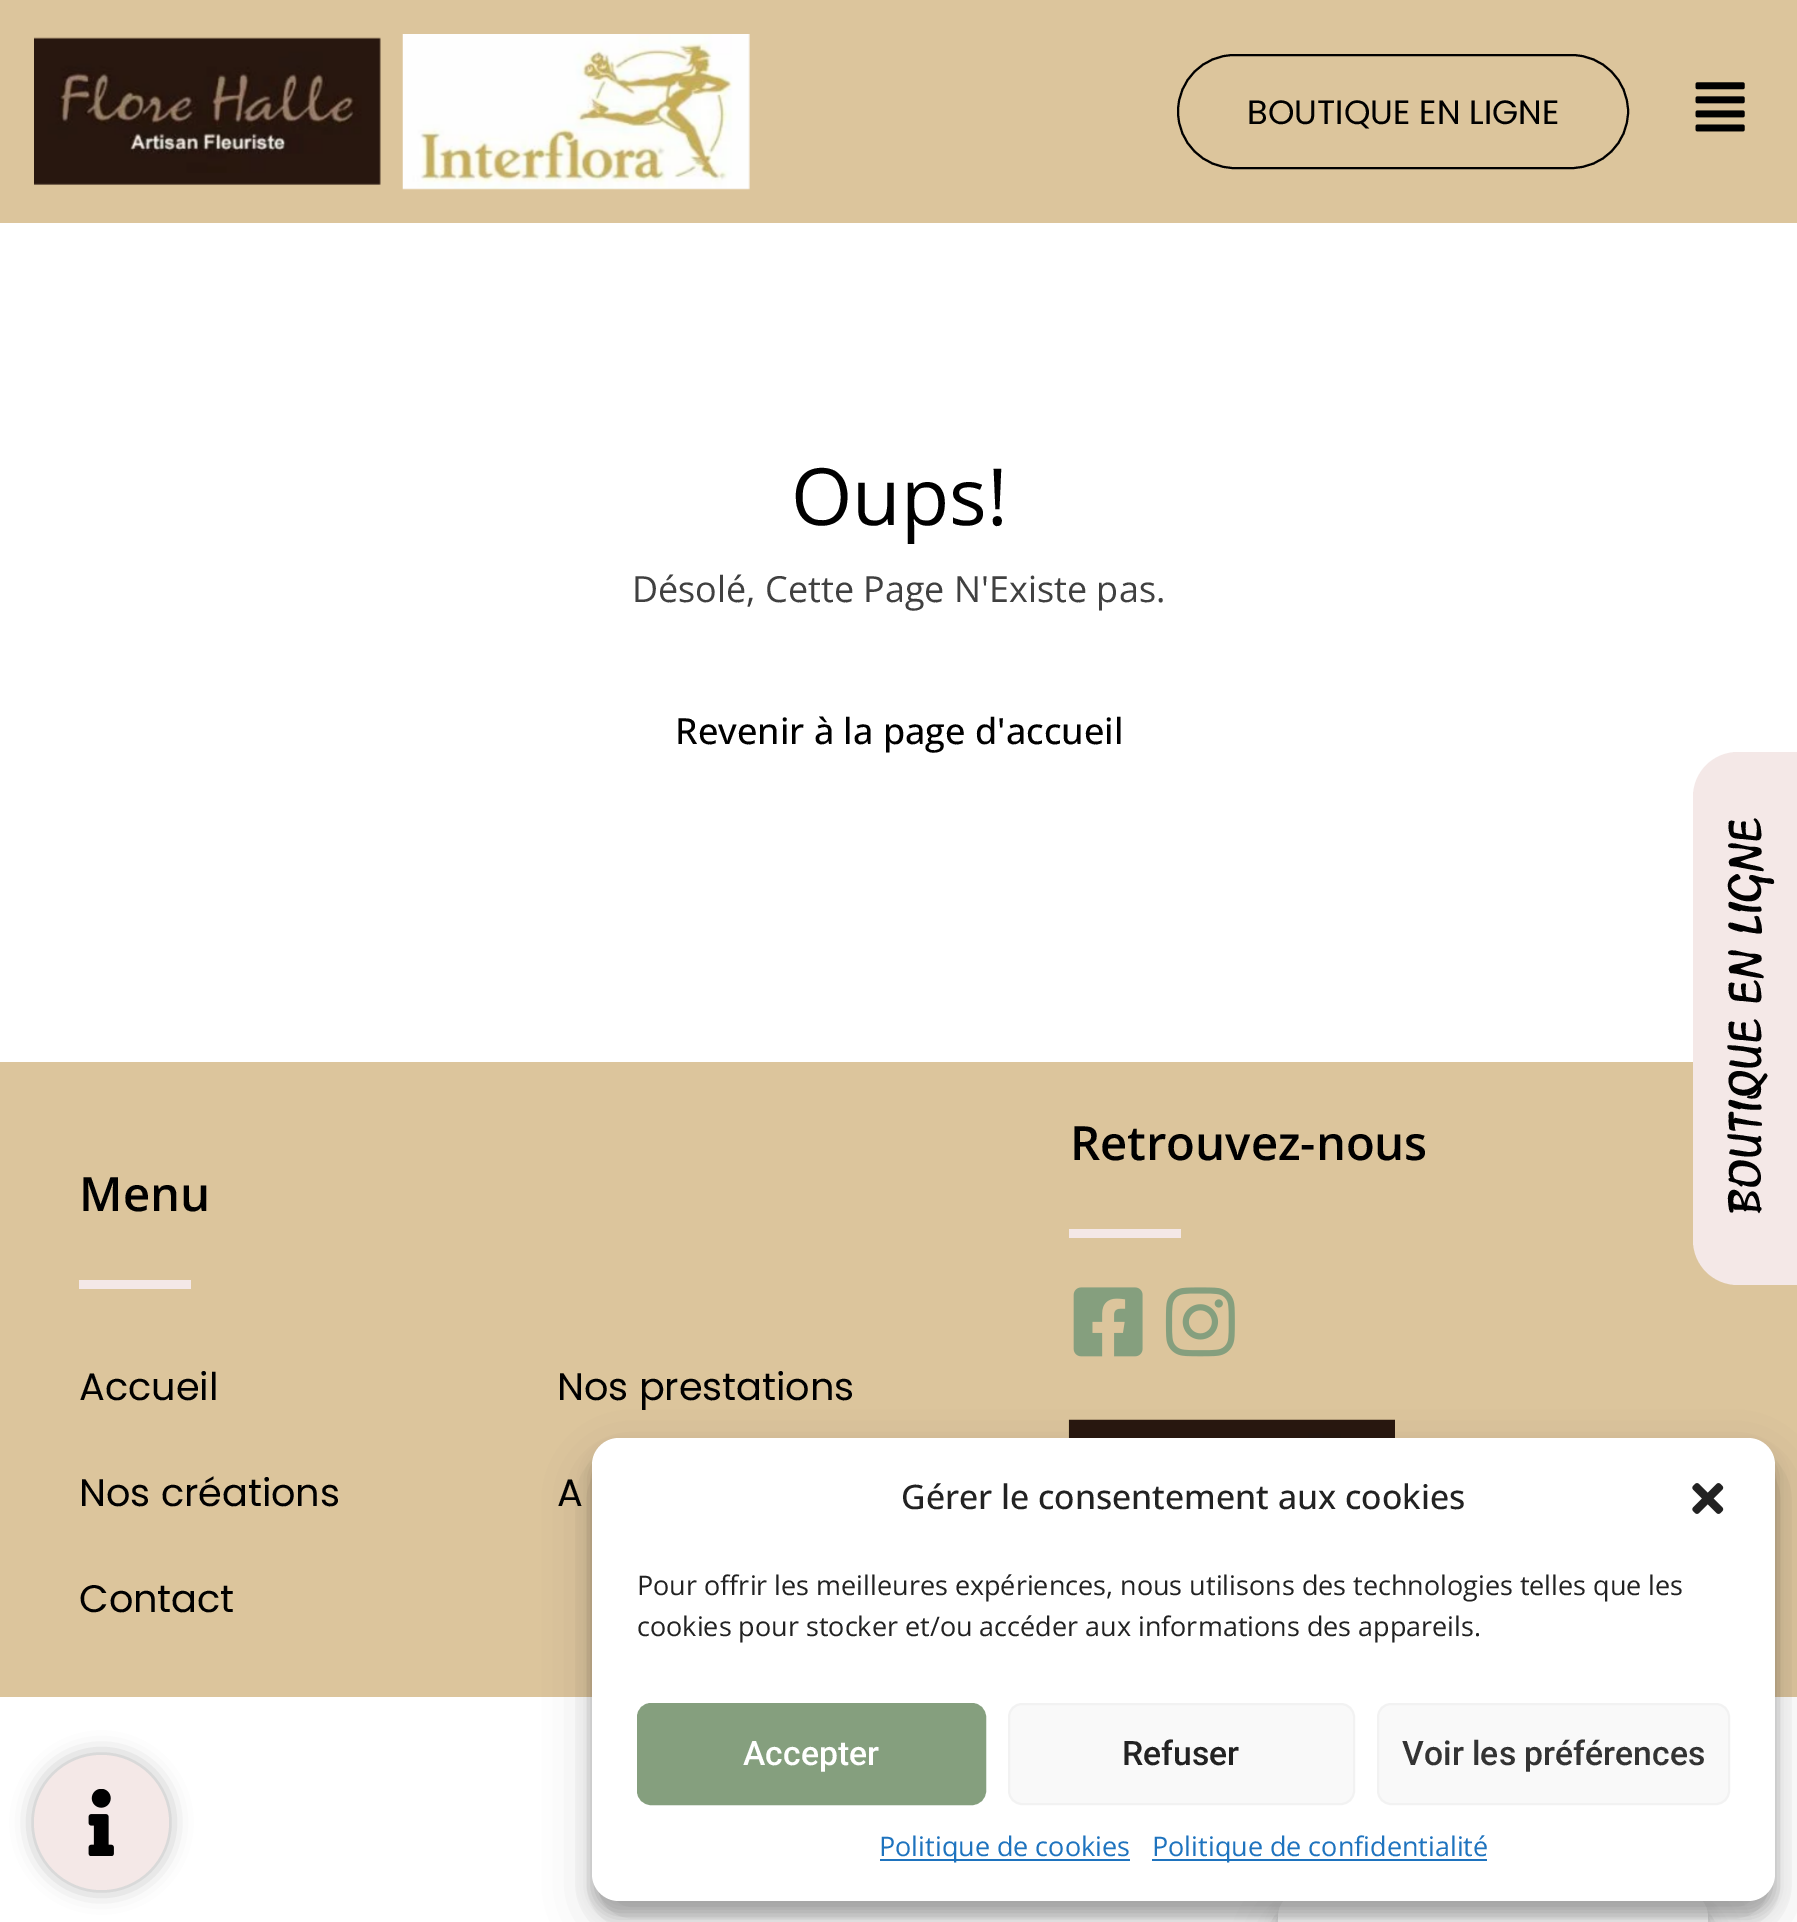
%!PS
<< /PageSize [1797 1922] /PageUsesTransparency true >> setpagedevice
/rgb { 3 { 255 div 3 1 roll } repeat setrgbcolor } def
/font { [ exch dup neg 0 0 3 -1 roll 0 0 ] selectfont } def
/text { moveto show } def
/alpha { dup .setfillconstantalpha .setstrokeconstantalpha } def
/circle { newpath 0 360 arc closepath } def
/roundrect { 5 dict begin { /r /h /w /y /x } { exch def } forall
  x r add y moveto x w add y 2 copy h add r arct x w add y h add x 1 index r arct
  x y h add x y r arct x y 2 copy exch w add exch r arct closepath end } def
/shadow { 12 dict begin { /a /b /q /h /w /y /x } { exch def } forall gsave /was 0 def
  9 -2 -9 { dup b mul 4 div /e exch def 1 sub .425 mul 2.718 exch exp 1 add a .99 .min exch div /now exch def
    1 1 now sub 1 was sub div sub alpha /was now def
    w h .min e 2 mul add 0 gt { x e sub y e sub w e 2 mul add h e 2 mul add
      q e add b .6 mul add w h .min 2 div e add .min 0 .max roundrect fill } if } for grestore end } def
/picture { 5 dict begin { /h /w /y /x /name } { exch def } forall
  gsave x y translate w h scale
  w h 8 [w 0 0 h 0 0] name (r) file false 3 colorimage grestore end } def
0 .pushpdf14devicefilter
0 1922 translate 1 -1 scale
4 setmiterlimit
255 255 255 rgb
0 0 1797 1922 rectfill
220 197 156 rgb
0 0 1797 223 rectfill
(img_01.rgb) 34 37 347 148 picture
(img_02.rgb) 402 34 348 156 picture
0 0 0 rgb
2 setlinewidth
1178 55 450 113 56.5 roundrect stroke
(img_03.rgb) 1695 82 50 50 picture
220 197 156 rgb
0 1062 1797 635 rectfill
244 232 231 rgb
1693 1240 moveto 0 -443 rlineto 0 -25 20 -45 45 -45 rcurveto 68 0 rlineto 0 533 rlineto -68 0 rlineto -25 0 -45 -20 -45 -45 rcurveto closepath fill
1069 1229 112 9 rectfill
(img_04.rgb) 1073 1287 70 70 picture
(img_05.rgb) 1165 1287 70 70 picture
(img_06.rgb) 1068 1419 327 19 picture
79 1280 112 9 rectfill
131 131 131 rgb
34 1755 135 135 67.5 11 0.62 shadow
244 232 231 rgb
101.5 1822.5 67.5 circle fill
(img_07.rgb) 88 1789 26 67 picture
0 0 0 rgb
1278 1904 430 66 27 7 0.23 shadow
1278 1913 430 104 27 22.5 0.19 shadow
255 255 255 rgb
1305 1890 moveto 376 0 rlineto 15 0 27 12 27 27 rcurveto 0 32 rlineto -430 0 rlineto 0 -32 rlineto 0 -15 12 -27 27 -27 rcurveto closepath fill
0 0 0 rgb
592 1451 1183 464 27 7 0.23 shadow
592 1460 1183 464 27 22.5 0.19 shadow
255 255 255 rgb
592 1438 1183 463 27 roundrect fill
(img_08.rgb) 1692 1483 32 31 picture
133 159 126 rgb
638 1704 347 100 13 roundrect gsave fill grestore
stroke
249 249 249 rgb
1009 1704 345 100 13 roundrect gsave fill grestore
242 242 242 rgb
stroke
249 249 249 rgb
1378 1704 351 100 13 roundrect gsave fill grestore
242 242 242 rgb
stroke
30 115 190 rgb
880 1859 250 2 rectfill
1152 1859 335 2 rectfill
/Poppins-Regular 33.75 font
0 0 0 rgb
(BOUTIQUE EN LIGNE) 1247 124 text
/OpenSans-Regular 79 font
(Oups!) 791 525 text
/OpenSans-Regular 36 font
64 64 64 rgb
(Désolé, Cette Page N'Existe pas.) 632 602 text
/OpenSans-Medium 36 font
0 0 0 rgb
(Revenir à la page d'accueil) 675 744 text
/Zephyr-Bold 45 font
gsave 1761 1217 translate -90 rotate 0 0 moveto (BOUTIQUE EN LIGNE) show grestore
/OpenSans-SemiBold 47.25 font
(Retrouvez-nous) 1070 1160 text
(Menu) 79 1211 text
/Poppins-Regular 38.25 font
(Accueil) 79 1400 text
(Nos prestations) 557 1400 text
(Nos créations) 79 1506 text
(A) 557 1506 text
(Contact) 79 1612 text
/OpenSans-Medium 33.75 font
34 34 34 rgb
(Gérer le consentement aux cookies) 901 1509 text
/OpenSans-Regular 27 font
(Pour offrir les meilleures expériences, nous utilisons des technologies telles que les) 637 1595 text
(cookies pour stocker et/ou accéder aux informations des appareils.) 637 1636 text
/Roboto-Medium 33.75 font
255 255 255 rgb
(Accepter) 743 1765 text
34 34 34 rgb
(Refuser) 1122 1765 text
51 51 51 rgb
(Voir les préférences) 1402 1765 text
/OpenSans-Regular 27 font
30 115 190 rgb
(Politique de cookies) 879 1856 text
(Politique de confidentialité) 1152 1856 text
.poppdf14devicefilter showpage
